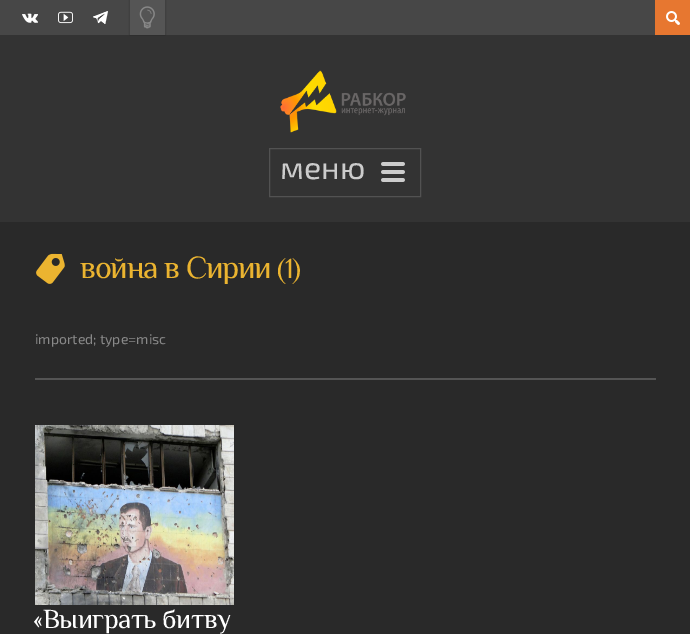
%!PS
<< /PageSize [690 634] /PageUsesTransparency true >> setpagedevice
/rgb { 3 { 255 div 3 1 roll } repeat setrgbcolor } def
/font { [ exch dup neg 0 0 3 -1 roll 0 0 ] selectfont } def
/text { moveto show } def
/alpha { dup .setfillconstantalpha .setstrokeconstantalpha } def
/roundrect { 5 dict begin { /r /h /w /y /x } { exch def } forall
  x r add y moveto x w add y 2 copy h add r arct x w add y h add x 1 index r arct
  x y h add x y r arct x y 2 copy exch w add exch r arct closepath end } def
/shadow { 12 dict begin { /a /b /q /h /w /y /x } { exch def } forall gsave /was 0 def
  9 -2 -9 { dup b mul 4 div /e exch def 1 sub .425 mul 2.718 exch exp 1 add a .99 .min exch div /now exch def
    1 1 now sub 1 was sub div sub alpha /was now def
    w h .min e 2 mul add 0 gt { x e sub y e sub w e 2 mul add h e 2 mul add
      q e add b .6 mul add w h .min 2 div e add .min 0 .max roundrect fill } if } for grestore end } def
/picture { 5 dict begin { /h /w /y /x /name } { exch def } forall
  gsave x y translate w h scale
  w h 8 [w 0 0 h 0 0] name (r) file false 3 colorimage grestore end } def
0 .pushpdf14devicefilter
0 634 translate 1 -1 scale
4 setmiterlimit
41 41 41 rgb
0 0 690 634 rectfill
71 71 71 rgb
0 0 655 35 rectfill
(img_01.rgb) 22 13 16 10 picture
(img_02.rgb) 58 11 15 13 picture
(img_03.rgb) 93 11 15 13 picture
51 51 51 rgb
0 35 690 187 rectfill
0 0 0 rgb
130 0 35 35 0 1 0.3 shadow
85 85 85 rgb
130 0 35 35 rectfill
(img_04.rgb) 139 6 16 23 picture
231 119 48 rgb
655 0 35 35 rectfill
(img_05.rgb) 666 11 14 14 picture
(img_06.rgb) 280 70 126 63 picture
82 82 82 rgb
269.5 148.5 151 48 rectstroke
(img_07.rgb) 381 162 24 20 picture
84 84 84 rgb
35 378 621 2 rectfill
(img_08.rgb) 36 253 29 31 picture
(img_09.rgb) 35 425 199 180 picture
/Exo2-Regular 32 font
204 204 204 rgb
(меню) 280 179 text
/Philosopher-Regular 32 font
235 180 48 rgb
80 278 moveto -1.25 0 (война в Сирии) ashow
/Philosopher-Regular 29 font
277 278 moveto -1.25 0 (\(1\)) ashow
/Exo2-Regular 14 font
137 137 137 rgb
(imported; type=misc) 35 344 text
/Philosopher-Regular 27.5 font
255 255 255 rgb
33 628 moveto -0.5 0 («Выиграть битву) ashow
.poppdf14devicefilter showpage
